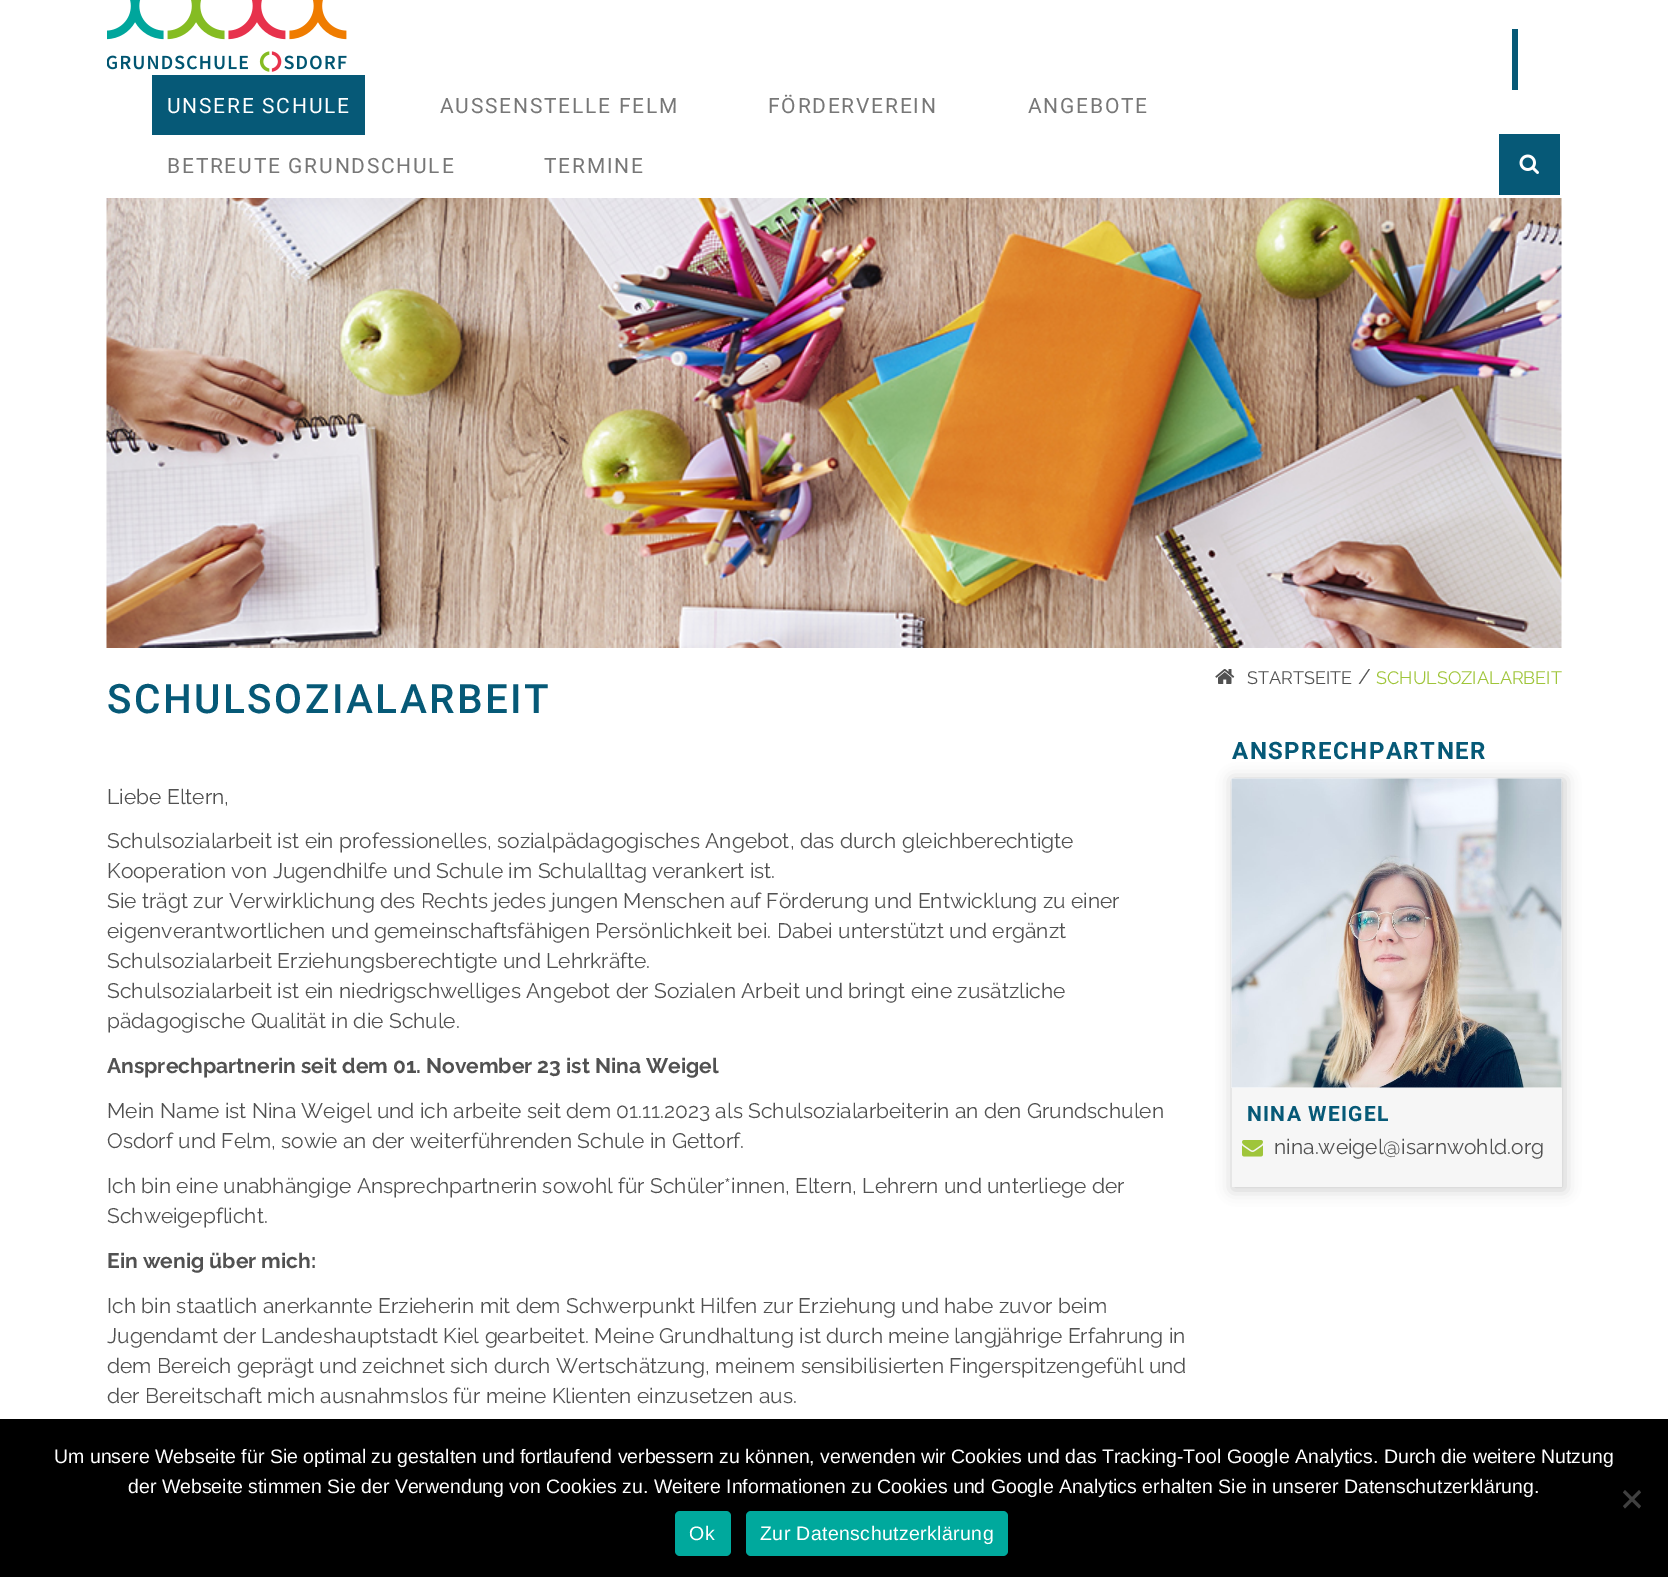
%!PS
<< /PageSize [1668 1577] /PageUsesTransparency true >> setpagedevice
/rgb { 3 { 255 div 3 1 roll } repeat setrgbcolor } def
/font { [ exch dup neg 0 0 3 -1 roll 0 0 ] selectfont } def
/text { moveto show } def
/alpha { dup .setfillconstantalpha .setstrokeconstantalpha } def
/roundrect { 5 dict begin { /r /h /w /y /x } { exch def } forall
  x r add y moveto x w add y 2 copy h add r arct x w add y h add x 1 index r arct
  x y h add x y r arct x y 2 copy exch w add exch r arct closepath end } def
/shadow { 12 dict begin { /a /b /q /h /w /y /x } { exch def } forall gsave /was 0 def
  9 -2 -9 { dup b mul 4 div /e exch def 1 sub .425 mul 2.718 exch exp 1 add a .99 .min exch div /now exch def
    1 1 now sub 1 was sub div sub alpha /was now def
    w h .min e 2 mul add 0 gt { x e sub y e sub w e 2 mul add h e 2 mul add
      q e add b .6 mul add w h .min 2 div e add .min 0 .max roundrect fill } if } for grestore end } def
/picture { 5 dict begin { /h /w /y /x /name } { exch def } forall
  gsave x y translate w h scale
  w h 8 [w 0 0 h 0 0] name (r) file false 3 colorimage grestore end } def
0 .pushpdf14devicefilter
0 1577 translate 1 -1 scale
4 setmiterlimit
255 255 255 rgb
0 0 1668 1577 rectfill
6 89 119 rgb
1512 29 6 61 rectfill
(img_01.rgb) 107 0 240 72 picture
152 75 213 60 rectfill
1499 134 61 61 rectfill
(img_02.rgb) 1519 154 20 20 picture
(img_03.rgb) 106 198 1456 450 picture
(img_04.rgb) 1215 669 20 15 picture
204 204 204 rgb
1232 779 333 411 0 7.5 1 shadow
(img_05.rgb) 1231 778 331 310 picture
246 246 246 rgb
1232 1088 330 99 rectfill
(img_06.rgb) 1242 1140 21 17 picture
0 0 0 rgb
0 1419 1668 158 rectfill
64 64 64 rgb
1639 1490 moveto 2 2.5 rlineto -16 16 rlineto -2 -2.5 rlineto closepath fill
1623 1492.5 moveto 2 -2.5 rlineto 16 16 rlineto -2 2.5 rlineto closepath fill
0 169 157 rgb
675 1511 56 45 5 roundrect fill
746 1511 262 45 5 roundrect fill
/Roboto-Regular 21 font
255 255 255 rgb
167 113 moveto 1.75 0 (UNSERE SCHULE) ashow
119 119 119 rgb
440 113 moveto 1.75 0 (AUSSENSTELLE FELM) ashow
768 113 moveto 1.75 0 (FÖRDERVEREIN) ashow
1028 113 moveto 1.75 0 (ANGEBOTE) ashow
167 173 moveto 1.75 0 (BETREUTE GRUNDSCHULE) ashow
544 173 moveto 1.75 0 (TERMINE) ashow
/Raleway-Thin 18 font
81 81 81 rgb
(STARTSEITE) 1247 684 text
/Raleway-Thin 21 font
(/) 1358 684 text
/Raleway-Thin 18 font
159 197 58 rgb
(SCHULSOZIALARBEIT) 1376 684 text
/Roboto-Medium 40.5 font
6 89 119 rgb
107 713 moveto 2.5 0 (SCHULSOZIALARBEIT) ashow
/Raleway-Thin 21 font
81 81 81 rgb
(Liebe Eltern,) 107 804 text
(Schulsozialarbeit ist ein professionelles, sozialpädagogisches Angebot, das durch gleichberechtigte) 107 848 text
(Kooperation von Jugendhilfe und Schule im Schulalltag verankert ist.) 107 878 text
(Sie trägt zur Verwirklichung des Rechts jedes jungen Menschen auf Förderung und Entwicklung zu einer) 107 908 text
(eigenverantwortlichen und gemeinschaftsfähigen Persönlichkeit bei. Dabei unterstützt und ergänzt) 107 938 text
(Schulsozialarbeit Erziehungsberechtigte und Lehrkräfte.) 107 968 text
(Schulsozialarbeit ist ein niedrigschwelliges Angebot der Sozialen Arbeit und bringt eine zusätzliche) 107 998 text
(pädagogische Qualität in die Schule.) 107 1028 text
/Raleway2-Thin 21 font
(Ansprechpartnerin seit dem 01. November 23 ist Nina Weigel) 107 1073 text
/Raleway-Thin 21 font
(Mein Name ist Nina Weigel und ich arbeite seit dem 01.11.2023 als Schulsozialarbeiterin an den Grundschulen) 107 1118 text
(Osdorf und Felm, sowie an der weiterführenden Schule in Gettorf.) 107 1148 text
(Ich bin eine unabhängige Ansprechpartnerin sowohl für Schüler*innen, Eltern, Lehrern und unterliege der) 107 1193 text
(Schweigepflicht.) 107 1223 text
/Raleway2-Thin 21 font
(Ein wenig über mich:) 107 1268 text
/Raleway-Thin 21 font
(Ich bin staatlich anerkannte Erzieherin mit dem Schwerpunkt Hilfen zur Erziehung und habe zuvor beim) 107 1313 text
(Jugendamt der Landeshauptstadt Kiel gearbeitet. Meine Grundhaltung ist durch meine langjährige Erfahrung in) 107 1343 text
(dem Bereich geprägt und zeichnet sich durch Wertschätzung, meinem sensibilisierten Fingerspitzengefühl und) 107 1373 text
(der Bereitschaft mich ausnahmslos für meine Klienten einzusetzen aus.) 107 1403 text
/Roboto-Bold 24 font
6 89 119 rgb
1232 759 moveto 1.5 0 (ANSPRECHPARTNER) ashow
/Roboto-Bold 21 font
1247 1121 moveto 1.25 0 (NINA WEIGEL) ashow
/Raleway-Thin 21 font
81 81 81 rgb
(nina.weigel@isarnwohld.org) 1274 1154 text
/LiberationSans-Regular 19.5 font
255 255 255 rgb
(Um unsere Webseite für Sie optimal zu gestalten und fortlaufend verbessern zu können, verwenden wir Cookies und das Tracking-Tool Google Analytics. Durch die weitere Nutzung) 54 1463 text
(der Webseite stimmen Sie der Verwendung von Cookies zu. Weitere Informationen zu Cookies und Google Analytics erhalten Sie in unserer Datenschutzerklärung.) 128 1493 text
689 1540 moveto 0.4 0 (Ok) ashow
760 1540 moveto 0.4 0 (Zur Datenschutzerklärung) ashow
.poppdf14devicefilter showpage
